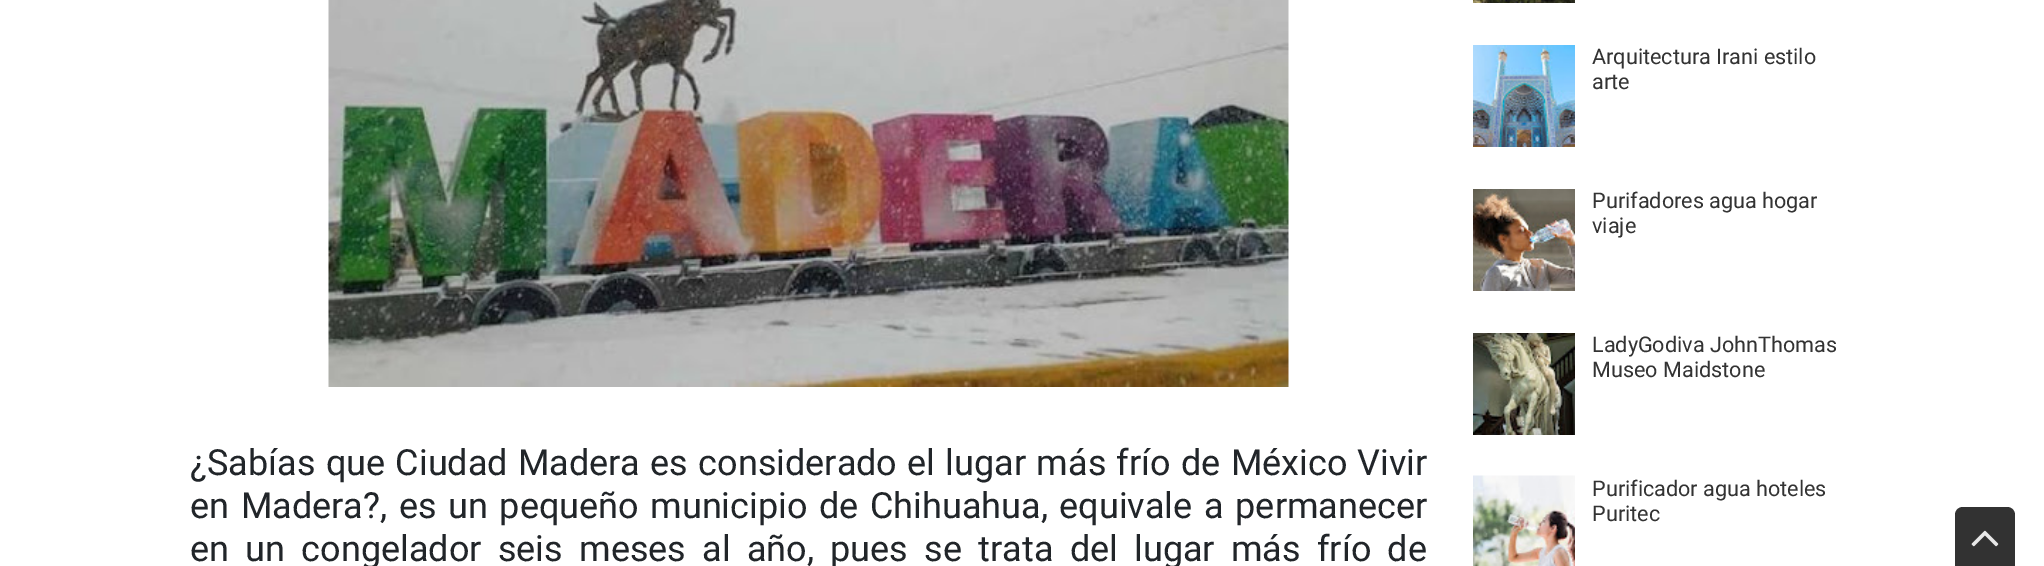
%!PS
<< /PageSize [2044 566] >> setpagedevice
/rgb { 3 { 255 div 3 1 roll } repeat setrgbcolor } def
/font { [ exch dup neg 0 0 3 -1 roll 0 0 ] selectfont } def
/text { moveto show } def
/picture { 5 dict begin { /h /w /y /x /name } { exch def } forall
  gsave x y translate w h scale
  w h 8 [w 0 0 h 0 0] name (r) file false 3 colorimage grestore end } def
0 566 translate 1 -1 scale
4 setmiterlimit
255 255 255 rgb
0 0 2044 566 rectfill
(img_01.rgb) 328 0 961 387 picture
(img_02.rgb) 1473 0 102 3 picture
(img_03.rgb) 1473 45 102 102 picture
(img_04.rgb) 1473 189 102 102 picture
(img_05.rgb) 1473 333 102 102 picture
(img_06.rgb) 1473 475 102 91 picture
50 50 50 rgb
1963 507 moveto 44 0 rlineto 4.5 0 8 3.5 8 8 rcurveto 0 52 rlineto -60 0 rlineto 0 -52 rlineto 0 -4.5 3.5 -8 8 -8 rcurveto closepath fill
(img_07.rgb) 1971 530 28 17 picture
/Roboto-Regular 36 font
33 37 41 rgb
190 475 moveto 1.4 0 32 (¿Sabías que Ciudad Madera es considerado el lugar más frío de México) widthshow
(Vivir) 1357 475 text
190 518 moveto 2.75 0 32 (en Madera?, es un pequeño municipio de Chihuahua, equivale a permanecer) widthshow
190 561 moveto 7.4 0 32 (en un congelador seis meses al año, pues se trata del lugar más frío de) widthshow
/Roboto-Regular 21.6 font
51 51 51 rgb
(Arquitectura Irani estilo) 1592 64 text
(arte) 1592 89 text
(Purifadores agua hogar) 1592 208 text
(viaje) 1592 233 text
(LadyGodiva JohnThomas) 1592 352 text
(Museo Maidstone) 1592 377 text
(Purificador agua hoteles) 1592 496 text
(Puritec) 1592 521 text
showpage
